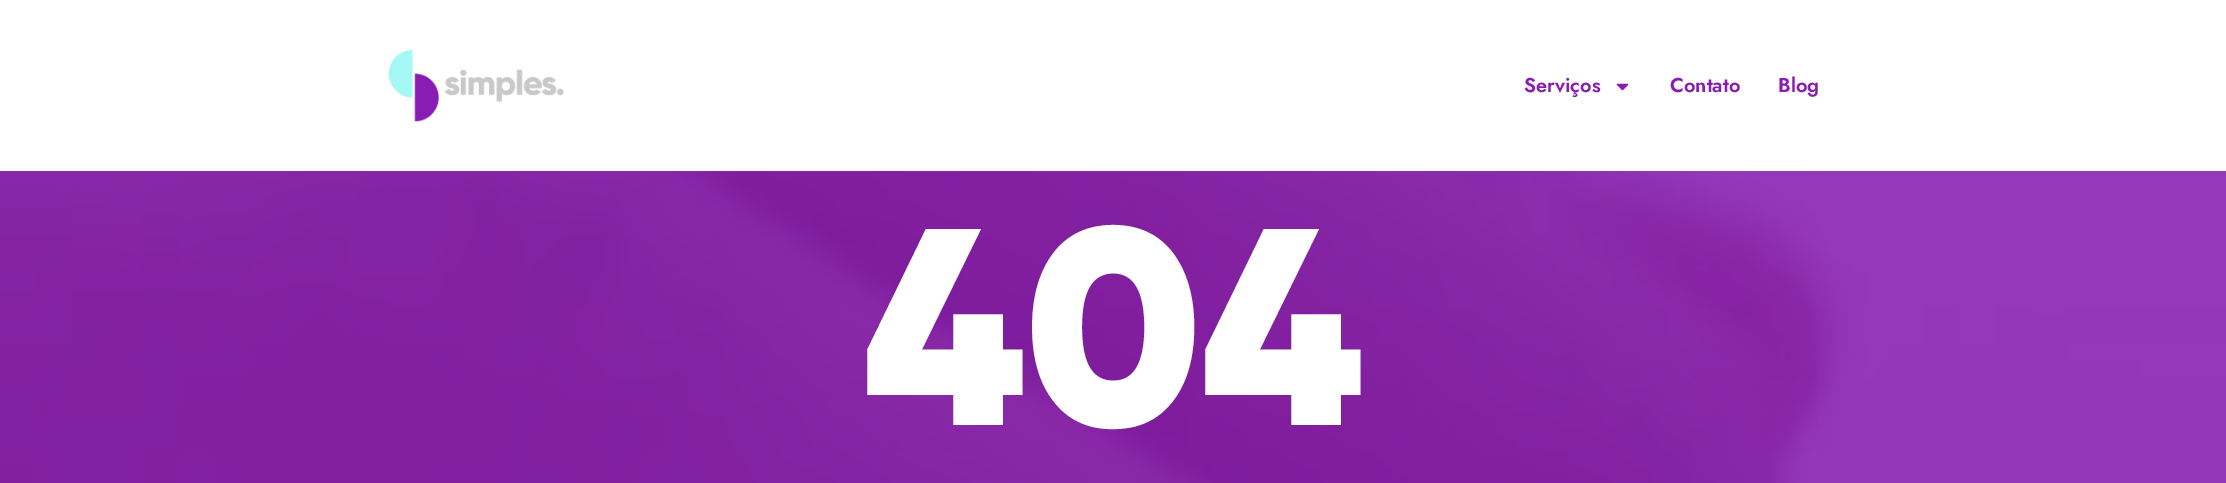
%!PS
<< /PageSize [2226 483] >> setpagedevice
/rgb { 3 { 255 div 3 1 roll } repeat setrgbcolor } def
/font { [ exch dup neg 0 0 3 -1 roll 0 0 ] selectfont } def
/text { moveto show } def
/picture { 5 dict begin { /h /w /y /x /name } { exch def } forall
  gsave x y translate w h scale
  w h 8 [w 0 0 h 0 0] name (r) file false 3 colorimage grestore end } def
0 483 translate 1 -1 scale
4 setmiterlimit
255 255 255 rgb
0 0 2226 483 rectfill
(img_01.rgb) 388 50 176 72 picture
(img_02.rgb) 1616 83 13 8 picture
(img_03.rgb) 0 171 2226 312 picture
/Jost-SemiBold 20 font
137 28 179 rgb
(Serviços) 1524 92 text
(Contato) 1670 92 text
(Blog) 1778 92 text
/Gilroy-Black 280 font
255 255 255 rgb
(404) 863 425 text
showpage
